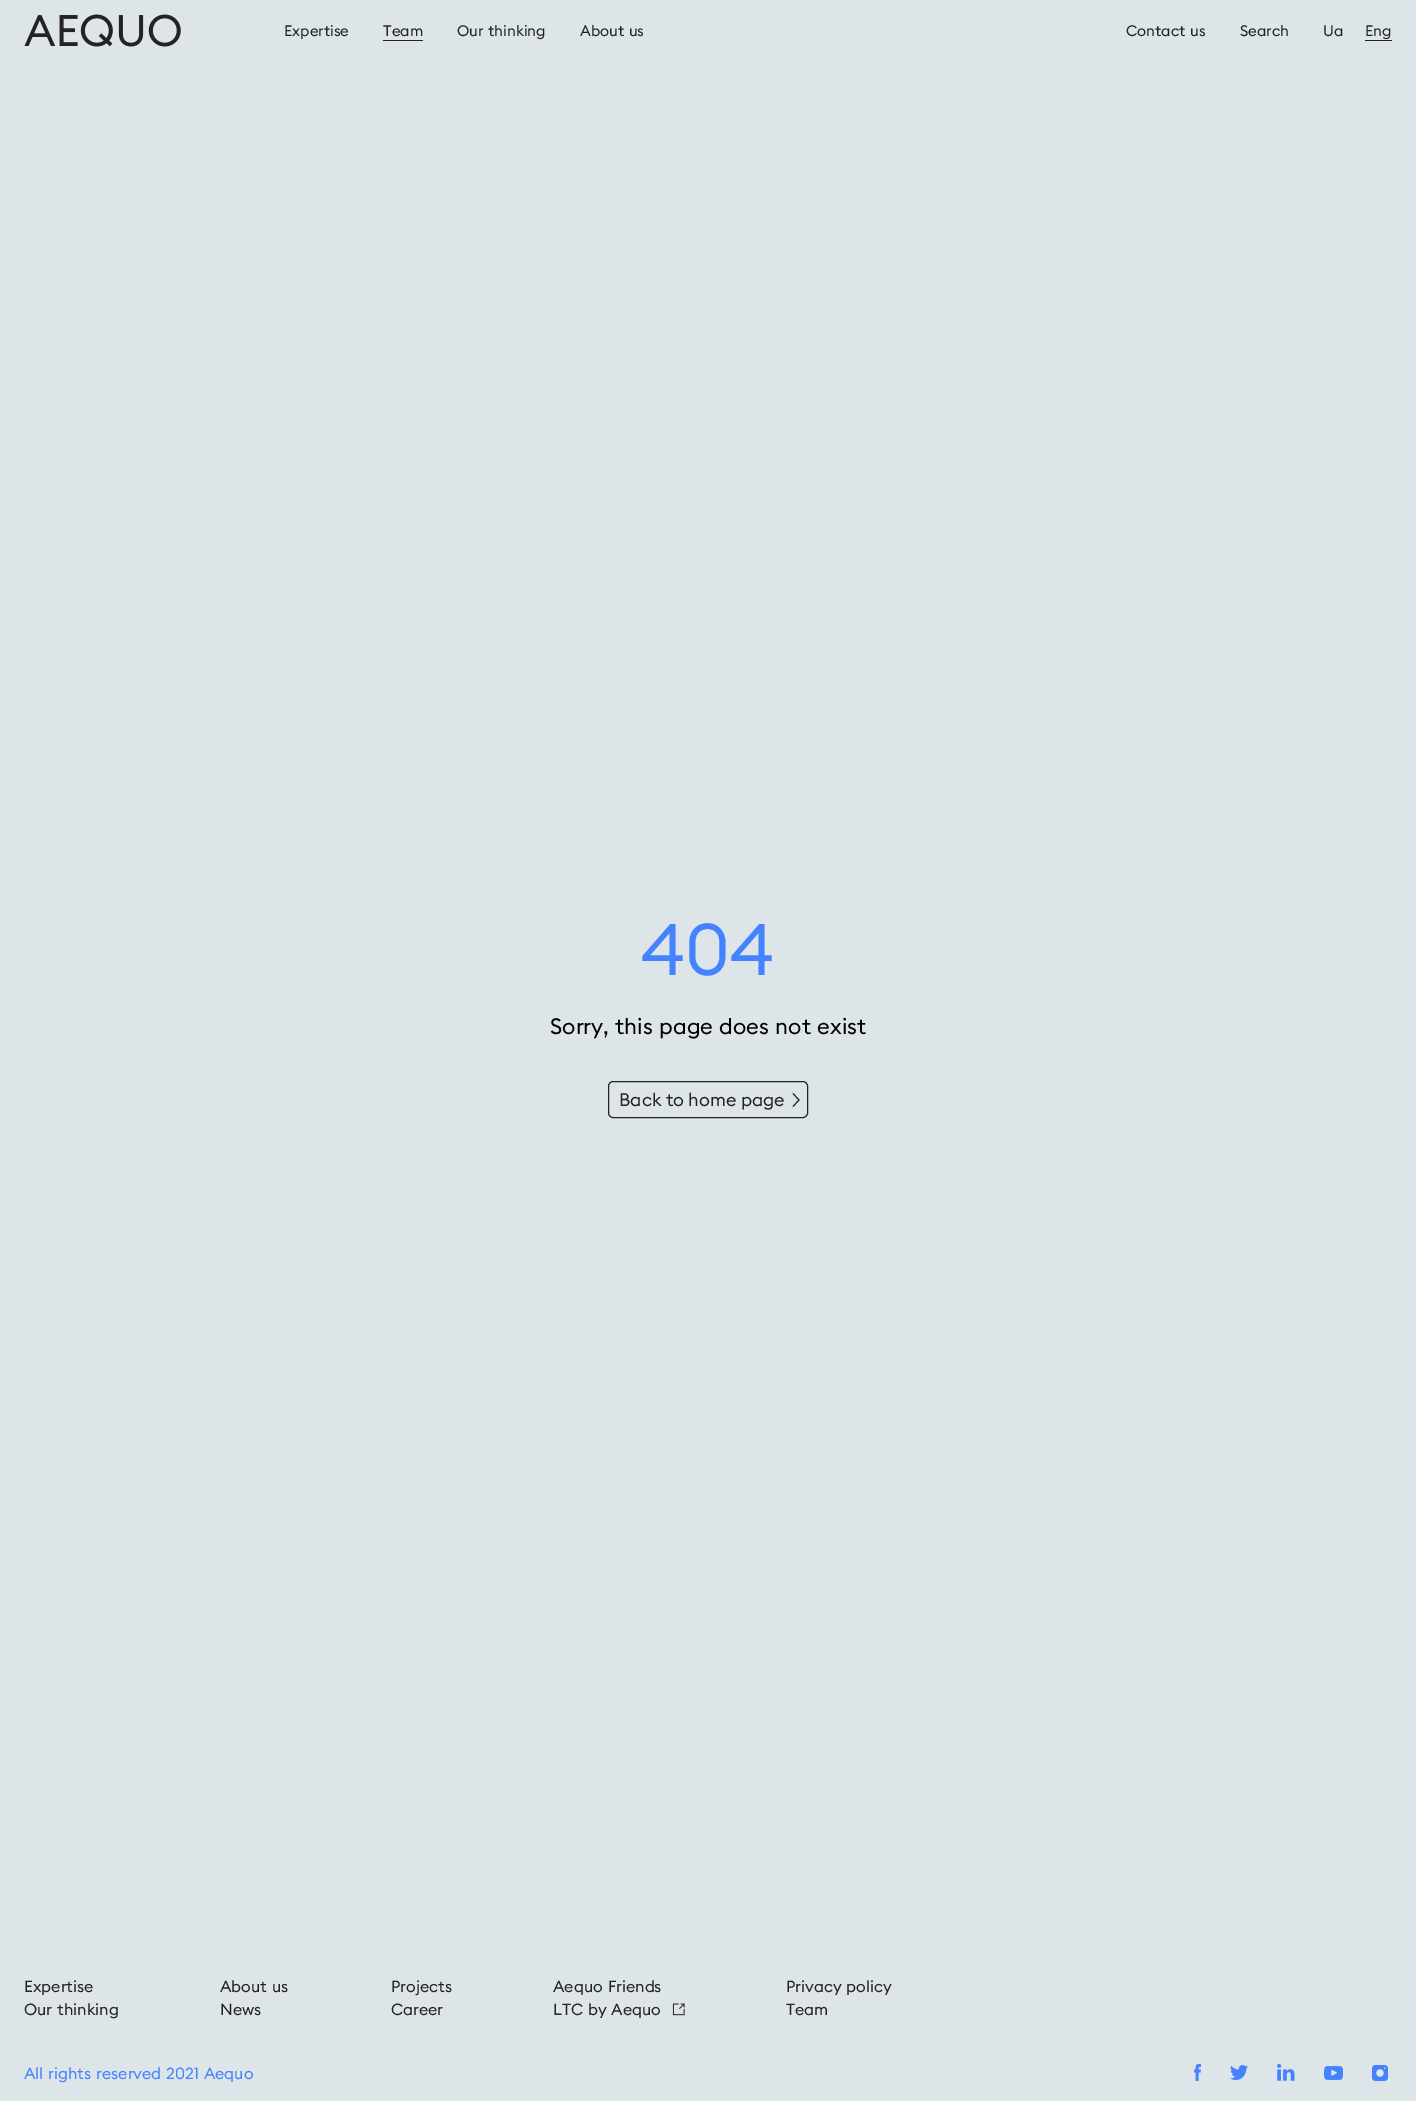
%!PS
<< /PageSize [1416 2101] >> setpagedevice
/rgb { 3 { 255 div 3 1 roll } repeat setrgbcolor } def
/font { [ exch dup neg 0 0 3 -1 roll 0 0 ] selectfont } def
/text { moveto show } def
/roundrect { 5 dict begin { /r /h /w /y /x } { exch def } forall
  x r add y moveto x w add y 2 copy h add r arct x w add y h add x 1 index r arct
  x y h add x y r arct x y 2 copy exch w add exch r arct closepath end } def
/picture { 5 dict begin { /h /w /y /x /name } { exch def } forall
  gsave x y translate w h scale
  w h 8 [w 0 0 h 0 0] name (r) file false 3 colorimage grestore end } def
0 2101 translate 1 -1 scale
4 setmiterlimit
221 229 232 rgb
0 0 1416 2101 rectfill
(img_01.rgb) 24 14 157 33 picture
35 35 35 rgb
383 40 40 1 rectfill
1365 40 27 1 rectfill
608.5 1081.5 199 36 4.5 roundrect stroke
793 1106.5 moveto 6 -6.5 rlineto -6 -6.5 rlineto stroke
(img_02.rgb) 672 2003 13 13 picture
(img_03.rgb) 1194 2064 7 17 picture
(img_04.rgb) 1230 2065 18 15 picture
(img_05.rgb) 1277 2064 18 17 picture
(img_06.rgb) 1324 2066 19 14 picture
(img_07.rgb) 1372 2065 16 16 picture
/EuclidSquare-Regular 15 font
(Expertise) 284 36 text
(Team) 383 36 text
457 36 moveto 1 0 32 (Our thinking) widthshow
580 36 moveto 1 0 32 (About us) widthshow
1126 36 moveto 1 0 32 (Contact us) widthshow
(Search) 1240 36 text
(Ua) 1323 36 text
(Eng) 1365 36 text
/EuclidSquare-Regular 72 font
67 131 255 rgb
(404) 641 975 text
/EuclidSquare-Regular 22 font
1 1 1 rgb
550 1034 moveto 1 0 32 (Sorry, this page does not exist) widthshow
/EuclidSquare-Regular 18 font
35 35 35 rgb
(Back to home page) 619 1106 text
/EuclidSquare-Regular 16 font
(Expertise) 24 1992 text
220 1992 moveto 1 0 32 (About us) widthshow
(Projects) 391 1992 text
553 1992 moveto 1 0 32 (Aequo Friends) widthshow
786 1992 moveto 1 0 32 (Privacy policy) widthshow
24 2015 moveto 1 0 32 (Our thinking) widthshow
(News) 220 2015 text
(Career) 391 2015 text
553 2015 moveto 1 0 32 (LTC by Aequo) widthshow
(Team) 786 2015 text
67 131 255 rgb
24 2079 moveto 1 0 32 (All rights reserved 2021 Aequo) widthshow
showpage
